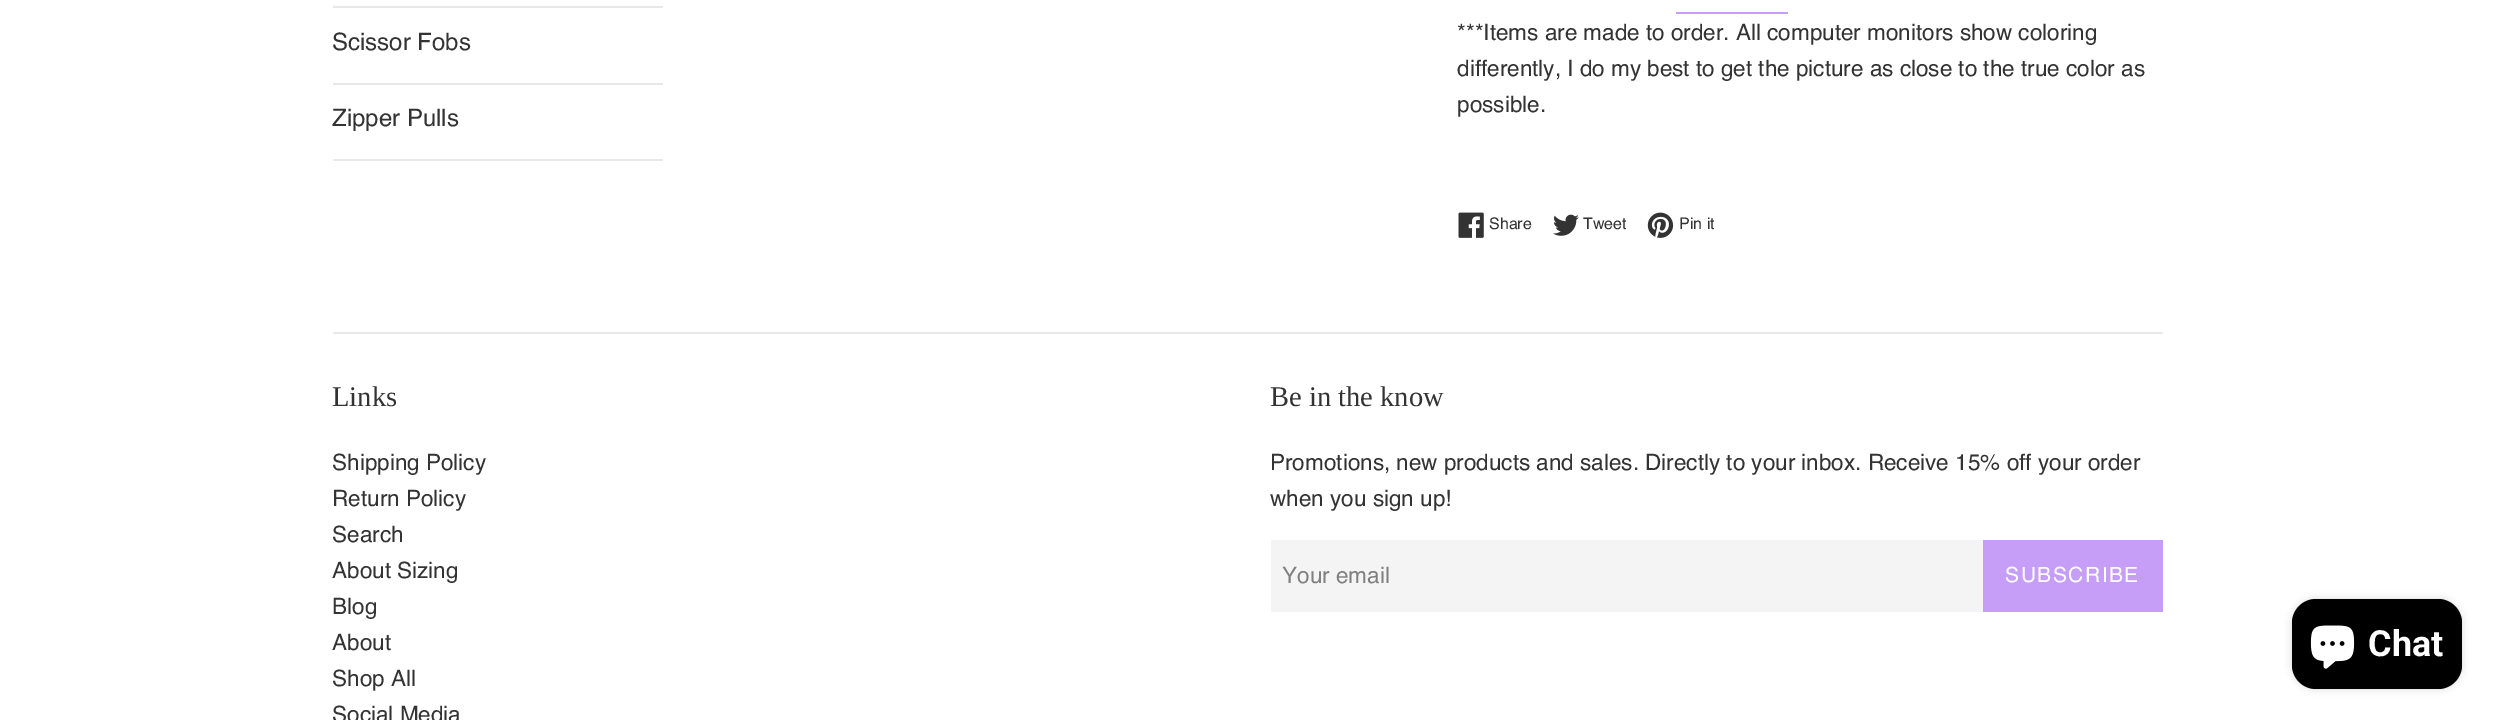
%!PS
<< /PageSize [2494 720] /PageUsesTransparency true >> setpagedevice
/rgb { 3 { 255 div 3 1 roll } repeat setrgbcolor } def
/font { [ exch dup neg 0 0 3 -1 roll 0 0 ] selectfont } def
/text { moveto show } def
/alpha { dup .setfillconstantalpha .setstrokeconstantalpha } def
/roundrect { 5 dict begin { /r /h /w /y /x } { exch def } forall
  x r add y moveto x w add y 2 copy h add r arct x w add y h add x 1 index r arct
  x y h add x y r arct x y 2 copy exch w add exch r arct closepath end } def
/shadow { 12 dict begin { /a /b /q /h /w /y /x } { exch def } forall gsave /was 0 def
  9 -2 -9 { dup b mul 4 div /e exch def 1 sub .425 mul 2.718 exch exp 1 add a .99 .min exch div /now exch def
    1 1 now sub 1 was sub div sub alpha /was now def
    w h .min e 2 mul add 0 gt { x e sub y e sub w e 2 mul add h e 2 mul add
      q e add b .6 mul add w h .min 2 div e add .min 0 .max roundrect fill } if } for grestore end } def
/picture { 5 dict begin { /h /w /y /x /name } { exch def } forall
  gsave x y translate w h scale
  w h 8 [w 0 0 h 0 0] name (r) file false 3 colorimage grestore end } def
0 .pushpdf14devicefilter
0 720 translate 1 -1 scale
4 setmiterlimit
255 255 255 rgb
0 0 2494 720 rectfill
232 232 232 rgb
333 6 330 2 rectfill
333 83 330 2 rectfill
333 159 330 2 rectfill
198 158 248 rgb
1676 12 112 2 rectfill
(img_01.rgb) 1458 212 26 26 picture
(img_02.rgb) 1553 214 26 22 picture
(img_03.rgb) 1647 212 27 26 picture
232 232 232 rgb
333 332 1830 2 rectfill
244 244 244 rgb
1271 540 712 72 rectfill
198 158 248 rgb
1983 540 180 72 rectfill
0 0 0 rgb
2292 599 170 90 24 4 0.15 shadow
2292 599 170 90 24 roundrect fill
(img_04.rgb) 2310 625 45 44 picture
/Helvetica-Regular 24 font
51 51 51 rgb
(Scissor Fobs) 332 50 text
(Zipper Pulls) 332 126 text
/Helvetica-Regular 22.5 font
(***Items are made to order. All computer monitors show coloring) 1457 40 text
(differently, I do my best to get the picture as close to the true color as) 1457 76 text
(possible.) 1457 112 text
/Helvetica-Regular 16 font
(Share) 1489 229 text
(Tweet) 1583 229 text
(Pin it) 1679 229 text
/LiberationSerif-Regular 28.5 font
(Links) 332 406 text
/Helvetica-Regular 22.5 font
(Shipping Policy) 332 470 text
(Return Policy) 332 506 text
(Search) 332 542 text
(About Sizing) 332 578 text
(Blog) 332 614 text
(About) 332 650 text
(Shop All) 332 686 text
(Social Media) 332 722 text
/LiberationSerif-Regular 28.5 font
(Be in the know) 1270 406 text
/Helvetica-Regular 22.5 font
(Promotions, new products and sales. Directly to your inbox. Receive 15% off your order) 1270 470 text
(when you sign up!) 1270 506 text
128 128 128 rgb
(Your email) 1282 583 text
/Helvetica-Regular 21 font
255 255 255 rgb
2005 582 moveto 1.5 0 (SUBSCRIBE) ashow
/Roboto-Bold 36 font
(Chat) 2368 656 text
.poppdf14devicefilter showpage
